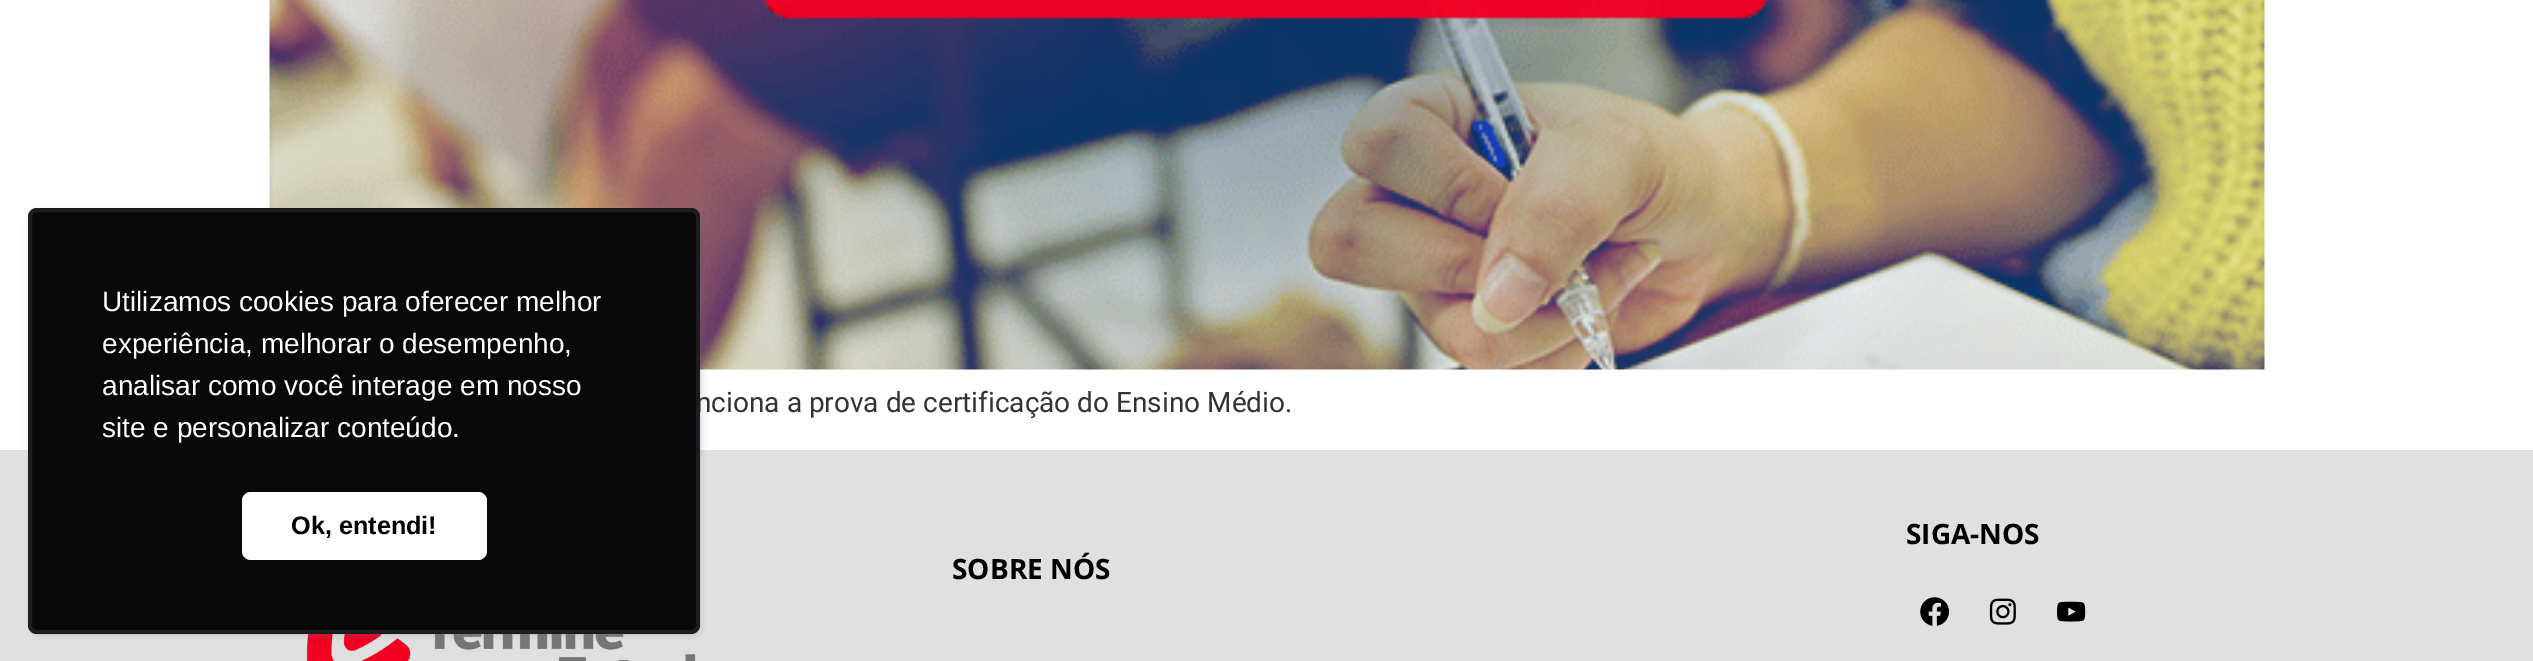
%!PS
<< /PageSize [2533 661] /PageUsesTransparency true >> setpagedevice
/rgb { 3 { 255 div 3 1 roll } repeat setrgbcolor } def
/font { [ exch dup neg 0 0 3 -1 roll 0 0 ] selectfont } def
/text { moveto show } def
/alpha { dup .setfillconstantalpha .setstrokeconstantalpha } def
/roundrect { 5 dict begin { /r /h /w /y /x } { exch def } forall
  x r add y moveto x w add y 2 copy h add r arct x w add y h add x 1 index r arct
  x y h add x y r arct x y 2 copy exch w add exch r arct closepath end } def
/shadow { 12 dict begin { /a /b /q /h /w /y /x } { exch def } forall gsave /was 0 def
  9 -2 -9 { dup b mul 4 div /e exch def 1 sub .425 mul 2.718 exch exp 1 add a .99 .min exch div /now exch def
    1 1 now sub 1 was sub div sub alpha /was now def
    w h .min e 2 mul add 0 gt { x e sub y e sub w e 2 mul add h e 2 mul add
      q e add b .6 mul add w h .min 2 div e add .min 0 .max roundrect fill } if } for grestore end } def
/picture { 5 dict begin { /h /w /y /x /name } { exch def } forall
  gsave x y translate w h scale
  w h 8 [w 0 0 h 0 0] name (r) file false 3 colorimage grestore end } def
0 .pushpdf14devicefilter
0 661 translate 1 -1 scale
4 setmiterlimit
255 255 255 rgb
0 0 2533 661 rectfill
(img_01.rgb) 269 0 1996 370 picture
224 224 224 rgb
0 450 2533 211 rectfill
(img_05.rgb) 306 634 390 27 picture
99 110 124 rgb
30 212 672 425 9 3.5 0.1 shadow
(img_02.rgb) 1920 597 29 29 picture
(img_03.rgb) 1989 598 27 27 picture
(img_04.rgb) 2057 601 29 21 picture
/Roboto-Regular 28 font
51 51 51 rgb
(nciona a prova de certificação do Ensino Médio.) 696 412 text
0.2 alpha
99 110 124 rgb
4 setlinewidth
30 210 668 422 7 roundrect stroke
1 alpha
30 212 672 425 9 3.5 0.1 shadow
9 9 9 rgb
28 208 672 426 9 roundrect fill
0.2 alpha
99 110 124 rgb
30 210 668 422 7 roundrect stroke
1 alpha
255 255 255 rgb
242 492 245 68 9 roundrect fill
/LiberationSans-Bold 25.25 font
0 0 0 rgb
(Ok, entendi!) 291 534 text
/LiberationSans-Regular 28 font
255 255 255 rgb
(site e personalizar conteúdo.) 102 437 text
(analisar como você interage em nosso) 102 395 text
(experiência, melhorar o desempenho,) 102 353 text
(Utilizamos cookies para oferecer melhor) 102 311 text
/OpenSans-Bold 28 font
0 0 0 rgb
(SIGA-NOS) 1906 544 text
(SOBRE NÓS) 952 579 text
.poppdf14devicefilter showpage
